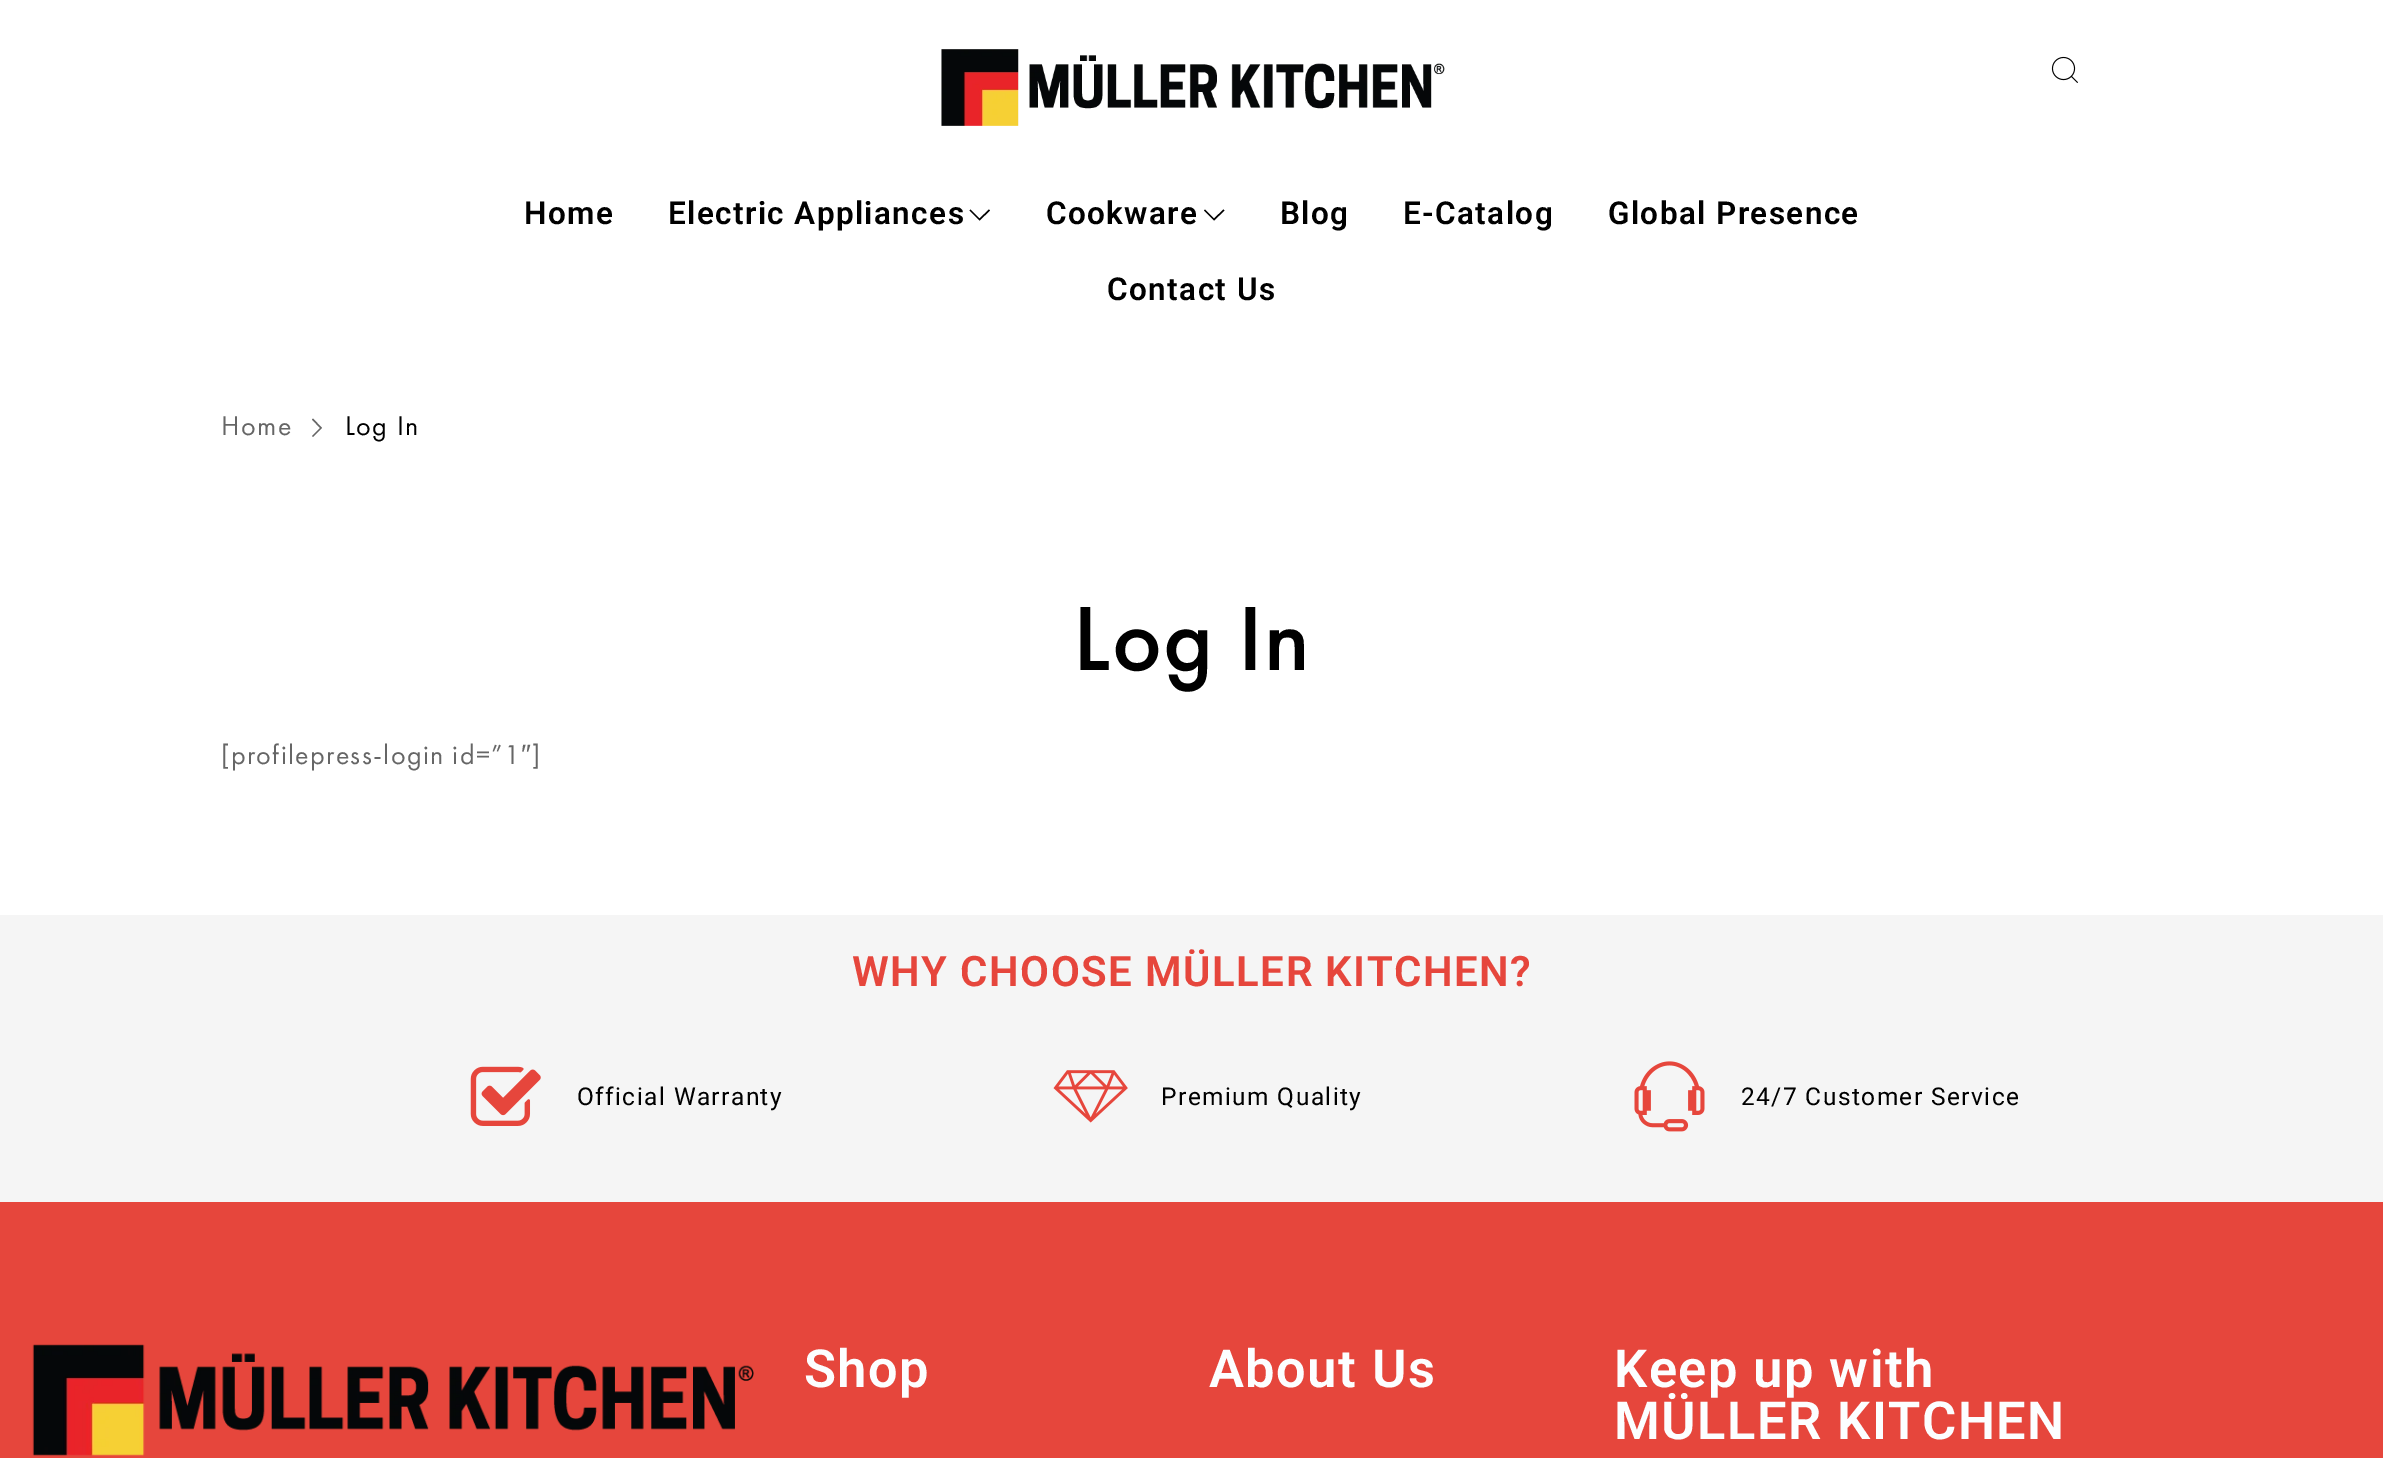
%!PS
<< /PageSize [2383 1458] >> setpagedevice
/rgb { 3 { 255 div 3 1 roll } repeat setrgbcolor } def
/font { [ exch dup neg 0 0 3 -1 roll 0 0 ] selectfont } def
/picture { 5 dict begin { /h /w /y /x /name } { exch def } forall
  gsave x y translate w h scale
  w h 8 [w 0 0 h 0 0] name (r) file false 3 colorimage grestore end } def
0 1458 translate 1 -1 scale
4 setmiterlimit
255 255 255 rgb
0 0 2383 1458 rectfill
(img_01.rgb) 2051 56 27 27 picture
(img_02.rgb) 941 49 504 77 picture
0 0 0 rgb
970.5 209.5 moveto 9 9 rlineto 9.5 -9 rlineto 1 1 rlineto -10.5 10 rlineto -10 -10 rlineto closepath fill
1205 209.5 moveto 9 9 rlineto 9.5 -9 rlineto 1 1 rlineto -10.5 10 rlineto -10 -10 rlineto closepath fill
102 102 102 rgb
313 418.5 moveto 9 9.5 rlineto -9 9 rlineto -1 -1 rlineto 8 -8 rlineto -8 -8.5 rlineto closepath fill
245 245 245 rgb
0 915 2383 287 rectfill
(img_03.rgb) 470 1066 71 60 picture
(img_04.rgb) 1053 1070 75 53 picture
(img_05.rgb) 1634 1061 71 71 picture
230 70 60 rgb
0 1202 2383 256 rectfill
(img_06.rgb) 32 1344 722 112 picture
/Roboto-SemiBold 31.5 font
0 0 0 rgb
524 224 moveto 1.4 0 (Home) ashow
668 224 moveto 1.4 0 (Electric Appliances) ashow
1046 224 moveto 1.4 0 (Cookware) ashow
1280 224 moveto 1.4 0 (Blog) ashow
1403 224 moveto 1.4 0 (E-Catalog) ashow
1608 224 moveto 1.4 0 (Global Presence) ashow
1107 300 moveto 1.4 0 (Contact Us) ashow
/FuturaPT-Regular 28 font
102 102 102 rgb
221 435 moveto 1.4 0 (Home) ashow
0 0 0 rgb
345 435 moveto 1.4 0 (Log In) ashow
/FuturaPT-Medium 94.5 font
1073 670 moveto 1.4 0 (Log In) ashow
/FuturaPT-Regular 28 font
102 102 102 rgb
221 764 moveto 1.4 0 ([profilepress-login id=”1) ashow
/LiberationSans-Regular 28 font
521 764 moveto 1.4 0 (″) ashow
/FuturaPT-Regular 28 font
532 764 moveto 1.4 0 (]) ashow
/Roboto-SemiBold 42 font
230 70 60 rgb
852 986 moveto 1.4 0 (WHY CHOOSE MÜLLER KITCHEN?) ashow
/Roboto-Regular 24.5 font
0 0 0 rgb
577 1105 moveto 1.4 0 (Official Warranty) ashow
1161 1105 moveto 1.4 0 (Premium Quality) ashow
1741 1105 moveto 1.4 0 (24/7 Customer Service) ashow
/Roboto-SemiBold 52.5 font
252 254 255 rgb
804 1387 moveto 1.4 0 (Shop) ashow
1209 1387 moveto 1.4 0 (About Us) ashow
1614 1387 moveto 1.4 0 (Keep up with) ashow
1614 1439 moveto 1.4 0 (MÜLLER KITCHEN) ashow
showpage
